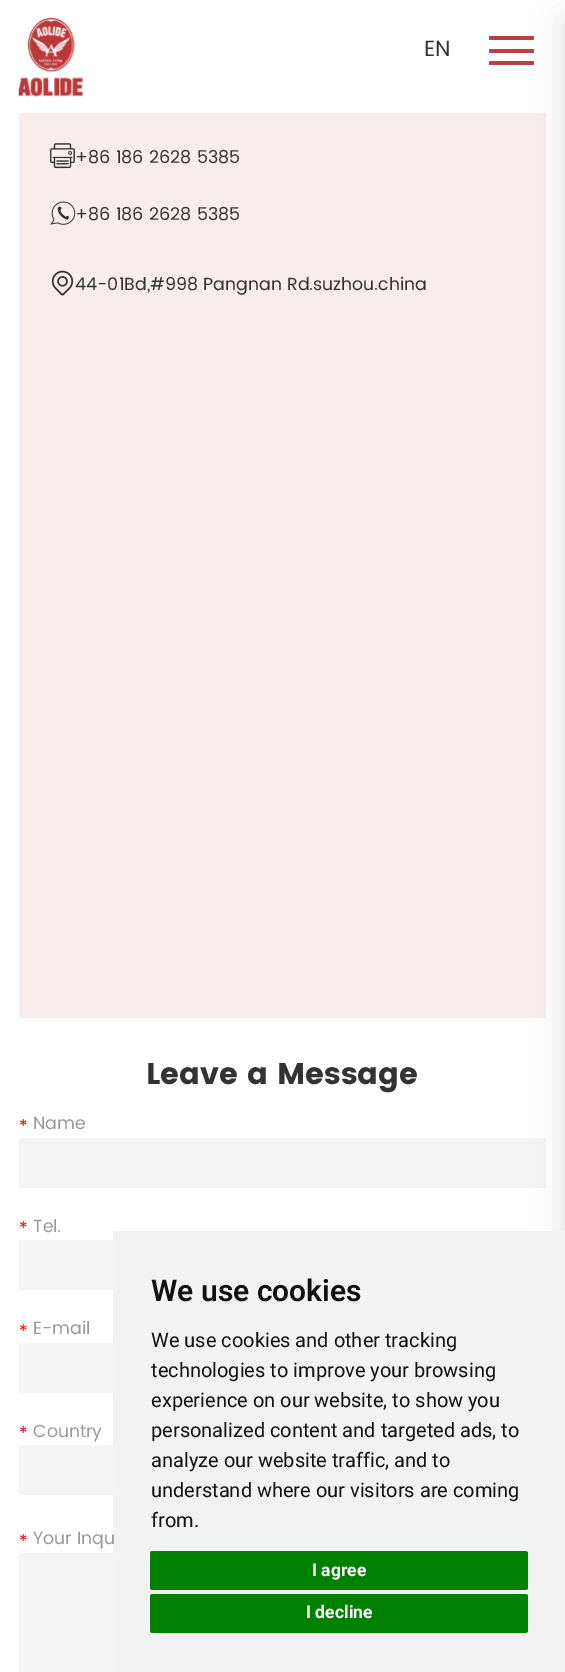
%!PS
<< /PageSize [565 1672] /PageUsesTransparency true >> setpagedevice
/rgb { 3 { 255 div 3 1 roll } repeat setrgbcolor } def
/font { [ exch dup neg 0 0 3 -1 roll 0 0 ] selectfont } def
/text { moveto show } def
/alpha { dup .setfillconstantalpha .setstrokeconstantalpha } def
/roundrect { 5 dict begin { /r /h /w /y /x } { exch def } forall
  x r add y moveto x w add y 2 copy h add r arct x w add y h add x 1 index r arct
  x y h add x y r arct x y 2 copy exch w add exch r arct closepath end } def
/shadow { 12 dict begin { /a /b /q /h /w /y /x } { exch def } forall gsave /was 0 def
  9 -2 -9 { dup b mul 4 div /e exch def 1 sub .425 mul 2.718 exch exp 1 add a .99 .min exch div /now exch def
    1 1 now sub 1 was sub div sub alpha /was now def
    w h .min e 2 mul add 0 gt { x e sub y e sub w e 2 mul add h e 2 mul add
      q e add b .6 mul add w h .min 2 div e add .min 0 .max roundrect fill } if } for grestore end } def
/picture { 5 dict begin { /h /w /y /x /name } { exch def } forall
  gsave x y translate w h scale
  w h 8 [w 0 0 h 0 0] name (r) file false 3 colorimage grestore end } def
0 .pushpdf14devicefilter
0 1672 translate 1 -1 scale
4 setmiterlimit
255 255 255 rgb
0 0 565 1672 rectfill
248 236 236 rgb
19 113 527 905 rectfill
(img_01.rgb) 18 18 65 79 picture
184 65 67 rgb
489 36 45 4 1 roundrect fill
489 49 45 4 1 roundrect fill
489 61 45 4 1 roundrect fill
244 244 244 rgb
19 1138 527 50 rectfill
167 165 165 rgb
565 19 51 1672 0 17 0.38 shadow
(img_02.rgb) 50 143 25 26 picture
(img_03.rgb) 50 201 26 24 picture
(img_04.rgb) 51 270 23 26 picture
244 244 244 rgb
19 1240 94 50 rectfill
19 1343 94 50 rectfill
19 1445 94 50 rectfill
19 1553 94 119 rectfill
242 242 242 rgb
113 1231 452 441 rectfill
0 128 0 rgb
150 1551 378 39 2.5 roundrect fill
150 1594 378 39 2.5 roundrect fill
/Poppins-Regular 22 font
51 51 51 rgb
(EN) 424 56 text
/Poppins-Regular 17.5 font
(+86 186 2628 5385) 75 163 text
(+86 186 2628 5385) 75 220 text
(44-01Bd,#998 Pangnan Rd.suzhou.china) 75 290 text
/Poppins-Bold 30 font
(Leave a Message) 146 1084 text
/Poppins-Regular 17.5 font
255 0 0 rgb
(*) 19 1132 text
153 153 153 rgb
(Name) 33 1129 text
255 0 0 rgb
(*) 19 1234 text
153 153 153 rgb
(Tel.) 33 1232 text
255 0 0 rgb
(*) 19 1337 text
153 153 153 rgb
(E-mail) 33 1334 text
255 0 0 rgb
(*) 19 1439 text
153 153 153 rgb
(Country) 33 1437 text
255 0 0 rgb
(*) 19 1547 text
153 153 153 rgb
(Your Inqu) 33 1544 text
/Roboto-SemiBold 30 font
17 17 17 rgb
(We use cookies) 151 1301 text
/Roboto-Regular 20 font
(We use cookies and other tracking) 151 1347 text
(technologies to improve your browsing) 151 1377 text
(experience on our website, to show you) 151 1407 text
(personalized content and targeted ads, to) 151 1437 text
(analyze our website traffic, and to) 151 1467 text
(understand where our visitors are coming) 151 1497 text
(from.) 151 1527 text
/Roboto-Bold 17.5 font
255 255 255 rgb
(I agree) 312 1576 text
(I decline) 306 1618 text
.poppdf14devicefilter showpage
